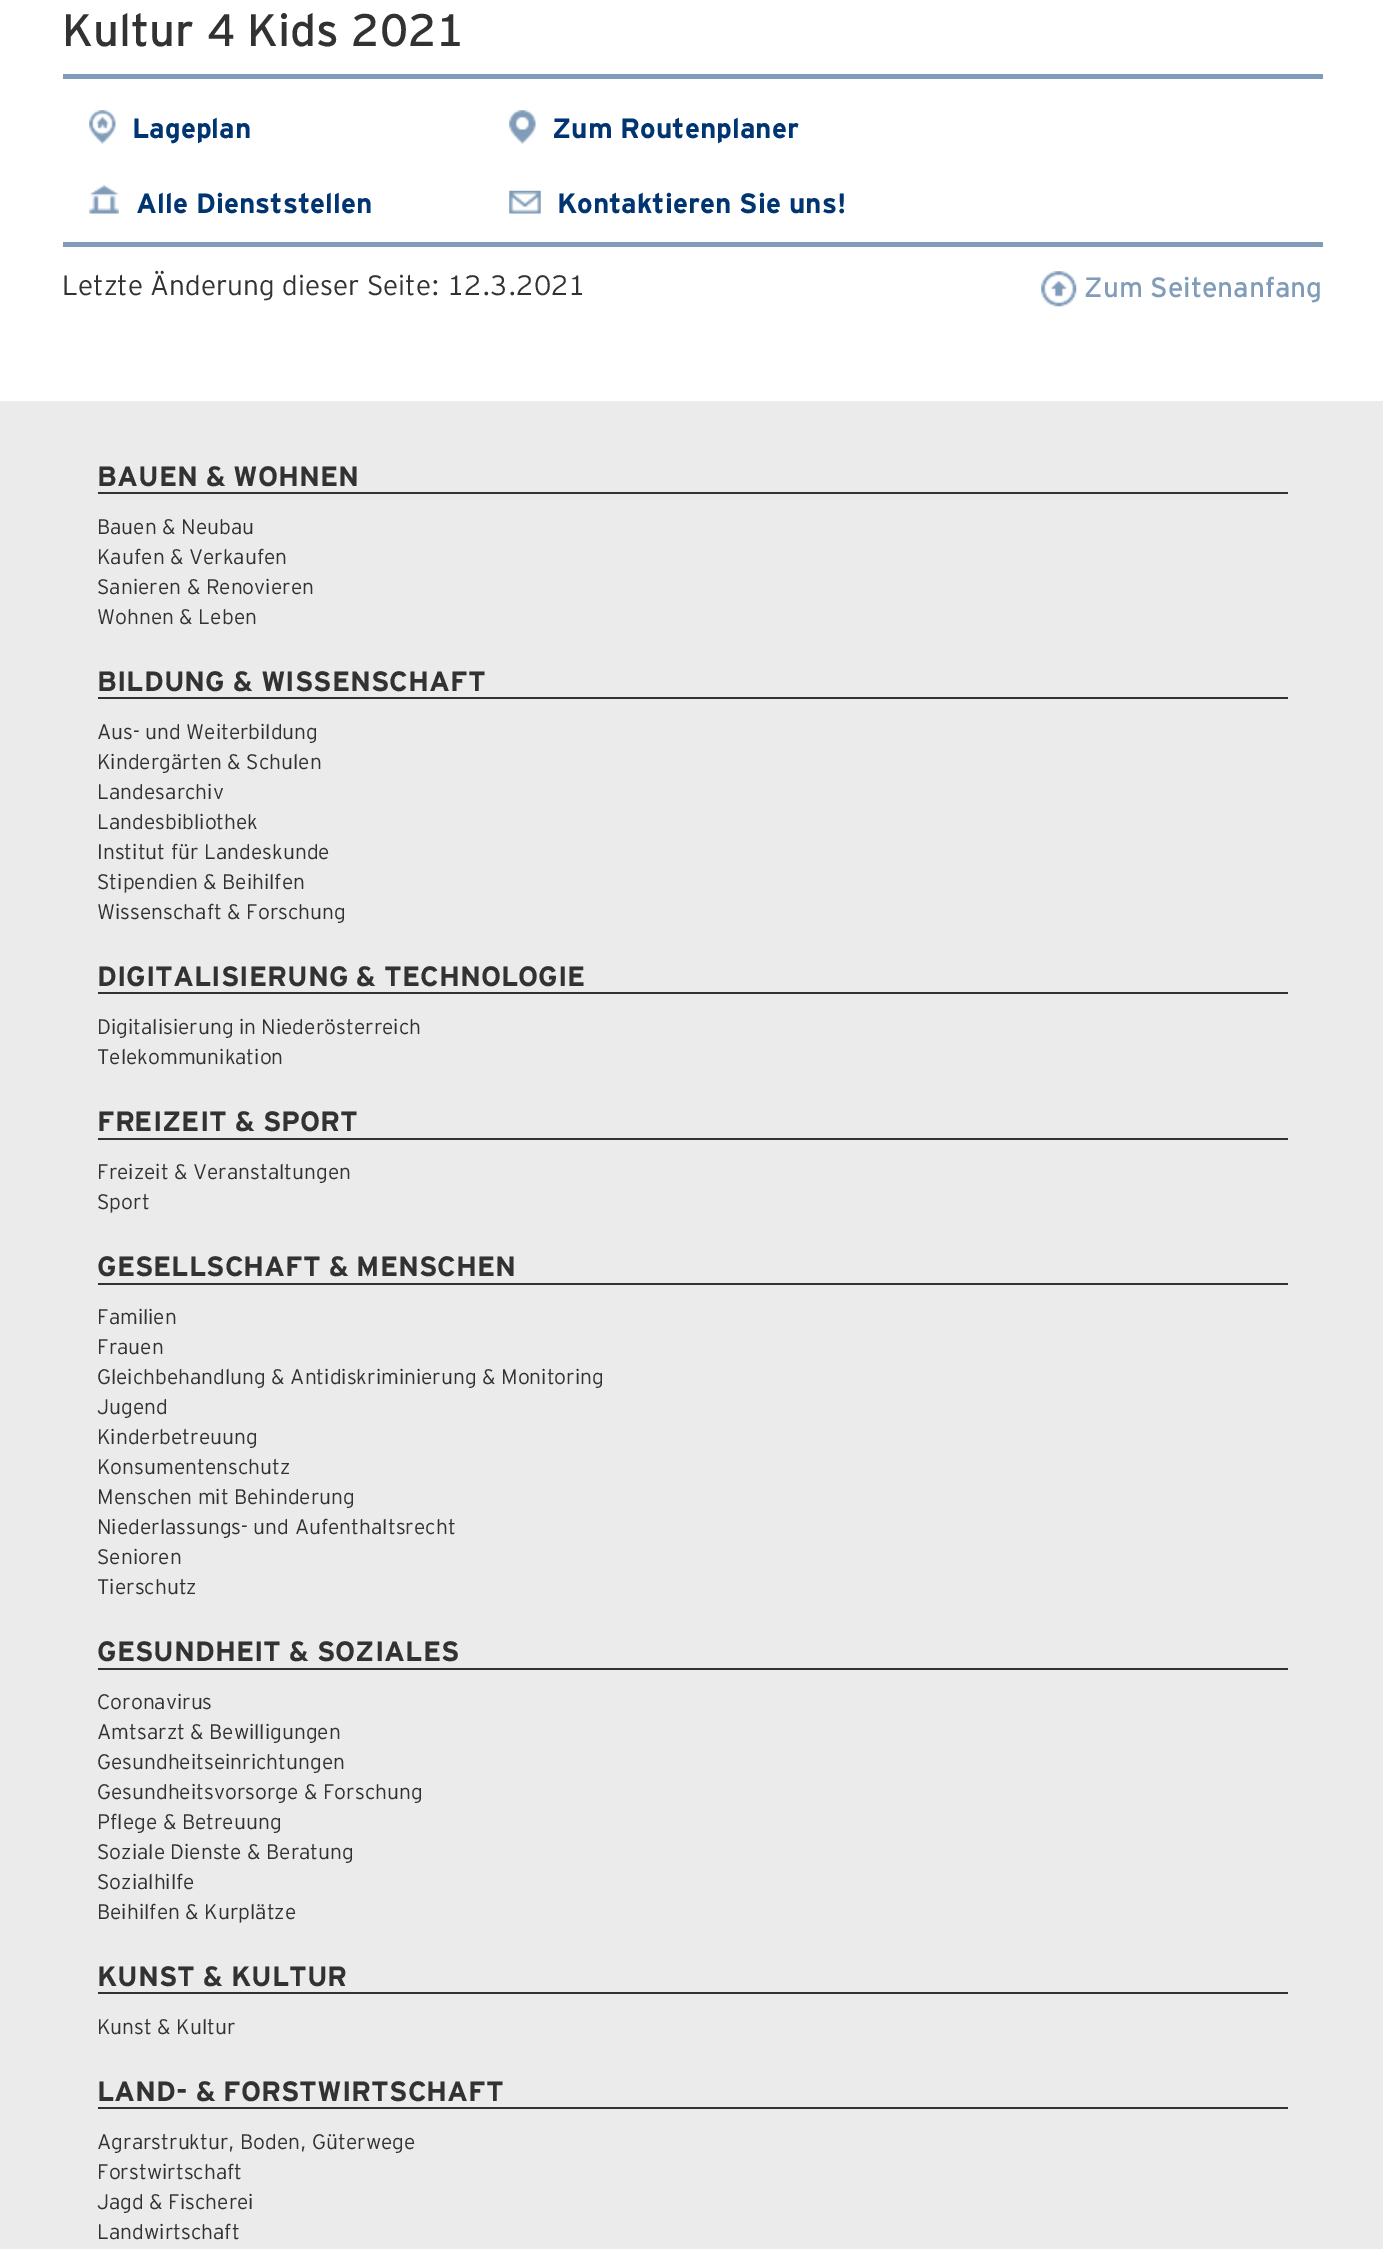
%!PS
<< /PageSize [1383 2249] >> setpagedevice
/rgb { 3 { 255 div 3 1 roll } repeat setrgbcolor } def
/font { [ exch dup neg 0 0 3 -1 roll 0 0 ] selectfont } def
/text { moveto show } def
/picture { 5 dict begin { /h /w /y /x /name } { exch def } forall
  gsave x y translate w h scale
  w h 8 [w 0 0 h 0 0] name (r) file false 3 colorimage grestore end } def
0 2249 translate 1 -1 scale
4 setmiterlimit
255 255 255 rgb
0 0 1383 2249 rectfill
128 156 184 rgb
63 74 1260 5 rectfill
(img_01.rgb) 89 110 27 34 picture
(img_02.rgb) 509 110 27 34 picture
(img_03.rgb) 89 185 30 29 picture
(img_04.rgb) 509 190 32 24 picture
63 242 1260 5 rectfill
(img_05.rgb) 1041 271 36 36 picture
235 235 235 rgb
0 401 1383 1848 rectfill
50 50 50 rgb
98 492 1190 2 rectfill
98 697 1190 2 rectfill
98 992 1190 2 rectfill
98 1138 1190 2 rectfill
98 1283 1190 2 rectfill
98 1668 1190 2 rectfill
98 1992 1190 2 rectfill
98 2107 1190 2 rectfill
/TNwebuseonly-Regular 45.5 font
(Kultur 4 Kids 2021) 62 46 text
/TNwebuseonly-Bold 28 font
0 53 114 rgb
(Lageplan) 132 138 text
(Zum Routenplaner) 552 138 text
(Alle Dienststellen) 136 213 text
(Kontaktieren Sie uns!) 557 213 text
/TNwebuseonly-Light 28 font
50 50 50 rgb
(Letzte Änderung dieser Seite: 12.3.2021) 62 295 text
/TNwebuseonly-Regular 28 font
128 156 184 rgb
(Zum Seitenanfang) 1084 297 text
/TNwebuseonly-Bold 28 font
50 50 50 rgb
(BAUEN & WOHNEN) 97 486 text
/TNwebuseonly-Light 21 font
(Bauen & Neubau) 97 534 text
(Kaufen & Verkaufen) 97 564 text
(Sanieren & Renovieren) 97 594 text
(Wohnen & Leben) 97 624 text
/TNwebuseonly-Bold 28 font
(BILDUNG & WISSENSCHAFT) 97 691 text
/TNwebuseonly-Light 21 font
(Aus- und Weiterbildung) 97 739 text
(Kindergärten & Schulen) 97 769 text
(Landesarchiv) 97 799 text
(Landesbibliothek) 97 829 text
(Institut für Landeskunde) 97 859 text
(Stipendien & Beihilfen) 97 889 text
(Wissenschaft & Forschung) 97 919 text
/TNwebuseonly-Bold 28 font
(DIGITALISIERUNG & TECHNOLOGIE) 97 986 text
/TNwebuseonly-Light 21 font
(Digitalisierung in Niederösterreich) 97 1034 text
(Telekommunikation) 97 1064 text
/TNwebuseonly-Bold 28 font
(FREIZEIT & SPORT) 97 1131 text
/TNwebuseonly-Light 21 font
(Freizeit & Veranstaltungen) 97 1179 text
(Sport) 97 1209 text
/TNwebuseonly-Bold 28 font
(GESELLSCHAFT & MENSCHEN) 97 1276 text
/TNwebuseonly-Light 21 font
(Familien) 97 1324 text
(Frauen) 97 1354 text
(Gleichbehandlung & Antidiskriminierung & Monitoring) 97 1384 text
(Jugend) 97 1414 text
(Kinderbetreuung) 97 1444 text
(Konsumentenschutz) 97 1474 text
(Menschen mit Behinderung) 97 1504 text
(Niederlassungs- und Aufenthaltsrecht) 97 1534 text
(Senioren) 97 1564 text
(Tierschutz) 97 1594 text
/TNwebuseonly-Bold 28 font
(GESUNDHEIT & SOZIALES) 97 1661 text
/TNwebuseonly-Light 21 font
(Coronavirus) 97 1709 text
(Amtsarzt & Bewilligungen) 97 1739 text
(Gesundheitseinrichtungen) 97 1769 text
(Gesundheitsvorsorge & Forschung) 97 1799 text
(Pflege & Betreuung) 97 1829 text
(Soziale Dienste & Beratung) 97 1859 text
(Sozialhilfe) 97 1889 text
(Beihilfen & Kurplätze) 97 1919 text
/TNwebuseonly-Bold 28 font
(KUNST & KULTUR) 97 1986 text
/TNwebuseonly-Light 21 font
(Kunst & Kultur) 97 2034 text
/TNwebuseonly-Bold 28 font
(LAND- & FORSTWIRTSCHAFT) 97 2101 text
/TNwebuseonly-Light 21 font
(Agrarstruktur, Boden, Güterwege) 97 2149 text
(Forstwirtschaft) 97 2179 text
(Jagd & Fischerei) 97 2209 text
(Landwirtschaft) 97 2239 text
showpage
